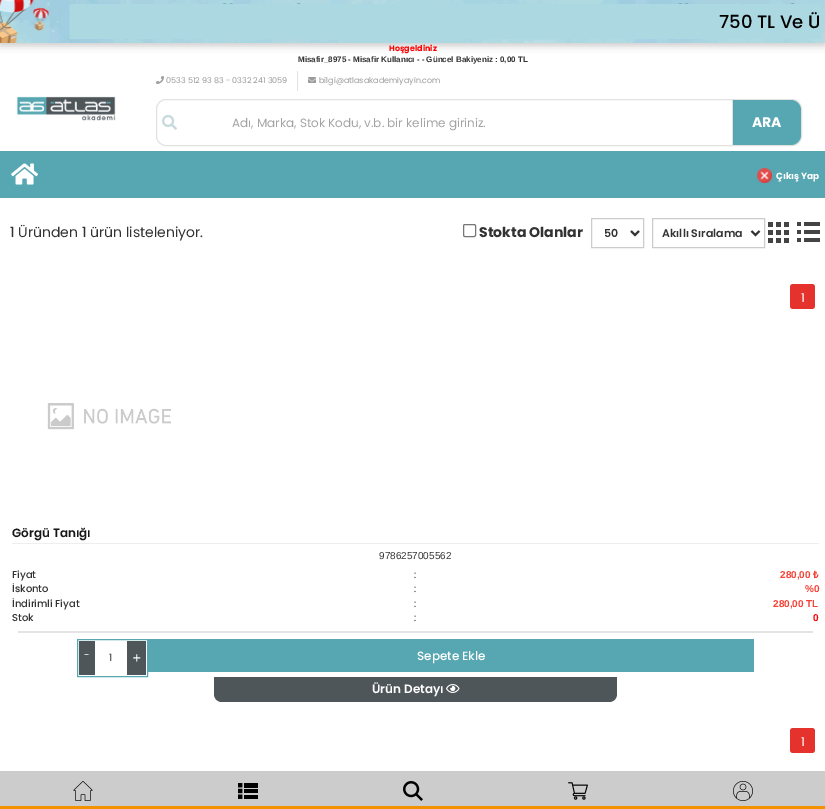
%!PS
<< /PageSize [825 809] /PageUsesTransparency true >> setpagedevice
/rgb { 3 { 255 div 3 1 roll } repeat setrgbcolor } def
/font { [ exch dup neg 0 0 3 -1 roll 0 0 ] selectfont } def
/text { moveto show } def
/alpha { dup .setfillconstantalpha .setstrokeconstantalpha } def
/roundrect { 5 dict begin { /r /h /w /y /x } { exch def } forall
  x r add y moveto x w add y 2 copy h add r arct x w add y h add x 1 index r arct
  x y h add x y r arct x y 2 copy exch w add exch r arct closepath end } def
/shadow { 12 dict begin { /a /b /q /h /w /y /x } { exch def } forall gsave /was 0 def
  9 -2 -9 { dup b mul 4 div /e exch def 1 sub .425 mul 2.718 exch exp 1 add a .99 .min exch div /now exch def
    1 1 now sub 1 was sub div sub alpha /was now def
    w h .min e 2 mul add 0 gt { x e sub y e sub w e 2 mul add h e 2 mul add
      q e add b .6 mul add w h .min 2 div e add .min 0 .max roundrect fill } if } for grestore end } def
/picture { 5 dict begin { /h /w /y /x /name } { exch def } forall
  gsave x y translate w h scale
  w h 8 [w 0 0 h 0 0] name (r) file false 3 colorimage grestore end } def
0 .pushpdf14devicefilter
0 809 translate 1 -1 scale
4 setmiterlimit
255 255 255 rgb
0 0 825 809 rectfill
204 204 204 rgb
0 3 825 43 0 3.5 1 shadow
(img_01.rgb) 0 0 825 43 picture
(img_02.rgb) 16 96 100 25 picture
226 226 226 rgb
297 71 1 20 rectfill
(img_03.rgb) 156 76 8 8 picture
(img_04.rgb) 308 77 8 6 picture
156.5 99.5 645 46 9.5 roundrect stroke
(img_05.rgb) 162 114 15 16 picture
87 167 178 rgb
732 100 moveto 59 0 rlineto 5.5 0 10 4.5 10 10 rcurveto 0 25 rlineto 0 5.5 -4.5 10 -10 10 rcurveto -59 0 rlineto closepath fill
224 224 224 rgb
732 100 1 45 rectfill
204 204 204 rgb
0 771 825 35 rectfill
243 146 0 rgb
0 806 825 3 rectfill
(img_06.rgb) 73 781 20 20 picture
(img_07.rgb) 238 783 20 16 picture
(img_08.rgb) 403 781 20 20 picture
(img_09.rgb) 568 782 20 18 picture
(img_10.rgb) 733 781 20 20 picture
87 167 178 rgb
0 151 825 47 rectfill
(img_11.rgb) 11 163 27 22 picture
(img_12.rgb) 757 168 15 15 picture
118 118 118 rgb
463.5 224.5 12 12 1.5 roundrect stroke
204 204 204 rgb
591.5 218.5 52 29 rectstroke
51 51 51 rgb
2 setlinewidth
631 231 moveto 4 4 rlineto 4 -4 rlineto stroke
204 204 204 rgb
1 setlinewidth
652.5 218.5 112 29 rectstroke
51 51 51 rgb
2 setlinewidth
751.5 231 moveto 4 4 rlineto 4 -4 rlineto stroke
(img_13.rgb) 768 222 21 21 picture
(img_14.rgb) 797 222 23 20 picture
229 50 45 rgb
790 284 25 25 3 roundrect fill
(img_15.rgb) 47 403 124 27 picture
238 238 238 rgb
12 543 807 1 rectfill
228 228 228 rgb
18 631 795 2 rectfill
87 167 178 rgb
1 setlinewidth
77.5 639.5 70 37 rectstroke
78 86 89 rgb
79 641 16 34 rectfill
127 641 19 34 rectfill
87 167 178 rgb
148 639 606 33 rectfill
78 86 89 rgb
214 677 moveto 403 0 rlineto 0 17 rlineto 0 4.5 -3.5 8 -8 8 rcurveto -387 0 rlineto -4.5 0 -8 -3.5 -8 -8 rcurveto closepath fill
(img_16.rgb) 446 684 14 9 picture
229 50 45 rgb
790 728 25 25 3 roundrect fill
/Poppins-Medium 18 font
0 0 0 rgb
(750 TL Ve Ü) 719 28 text
/Poppins-Bold 8 font
255 0 0 rgb
(Hoşgeldiniz) 389 51 text
/LiberationSans-Bold 8 font
51 51 51 rgb
(Misafir_8975 - Misafir Kullanıcı - - Güncel Bakiyeniz : 0,00 TL) 298 62 text
/Poppins-Regular 8 font
155 155 155 rgb
(0533 512 93 83 - 0332 241 3059) 166 83 text
(bilgi@atlasakademiyayin.com) 319 83 text
/Poppins-Regular 12 font
163 163 163 rgb
(Adı, Marka, Stok Kodu, v.b. bir kelime giriniz.) 232 127 text
/Poppins-Bold 14 font
255 255 255 rgb
(ARA) 752 127 text
/Poppins-Bold 9 font
(Çıkış Yap) 776 179 text
/Poppins-Regular 14 font
51 51 51 rgb
(1 Üründen 1 ürün listeleniyor.) 10 237 text
/Poppins-Bold 14 font
(Stokta Olanlar) 479 237 text
/Poppins-SemiBold 11 font
(50) 604 237 text
(Akıllı Sıralama) 662 237 text
/Poppins-Regular 12 font
255 255 255 rgb
(1) 801 302 text
/Poppins-SemiBold 12 font
23 23 23 rgb
(Görgü Tanığı) 12 537 text
/LiberationSans-Regular 10 font
51 51 51 rgb
(9786257005562) 379 559 text
/Poppins-Medium 10 font
(Fiyat) 12 578 text
/Poppins-Regular 10 font
(:) 414 578 text
/LiberationSans-Bold 10 font
244 67 54 rgb
(280,00) 780 578 text
/NotoSans-Bold 10 font
(₺) 813 578 text
/Poppins-Medium 10 font
51 51 51 rgb
(İskonto) 12 592 text
/Poppins-Regular 10 font
(:) 414 592 text
/LiberationSans-Bold 10 font
244 67 54 rgb
(%0) 805 592 text
/Poppins-Medium 10 font
51 51 51 rgb
(İndirimli Fiyat) 12 607 text
/Poppins-Regular 10 font
(:) 414 607 text
/LiberationSans-Bold 10 font
244 67 54 rgb
(280,00 TL) 773 607 text
/Poppins-Medium 10 font
51 51 51 rgb
(Stok) 12 621 text
/Poppins-Regular 10 font
(:) 414 621 text
/LiberationSans-Bold 10 font
255 0 0 rgb
(0) 813 621 text
/Poppins-Regular 10 font
255 255 255 rgb
(-) 84 658 text
51 51 51 rgb
(1) 109 661 text
/Poppins-Regular 14 font
255 255 255 rgb
(+) 132 663 text
/Poppins-Medium 12 font
(Sepete Ekle) 417 660 text
/Poppins-SemiBold 12 font
(Ürün Detayı) 372 693 text
/Poppins-Regular 12 font
(1) 801 746 text
.poppdf14devicefilter showpage
